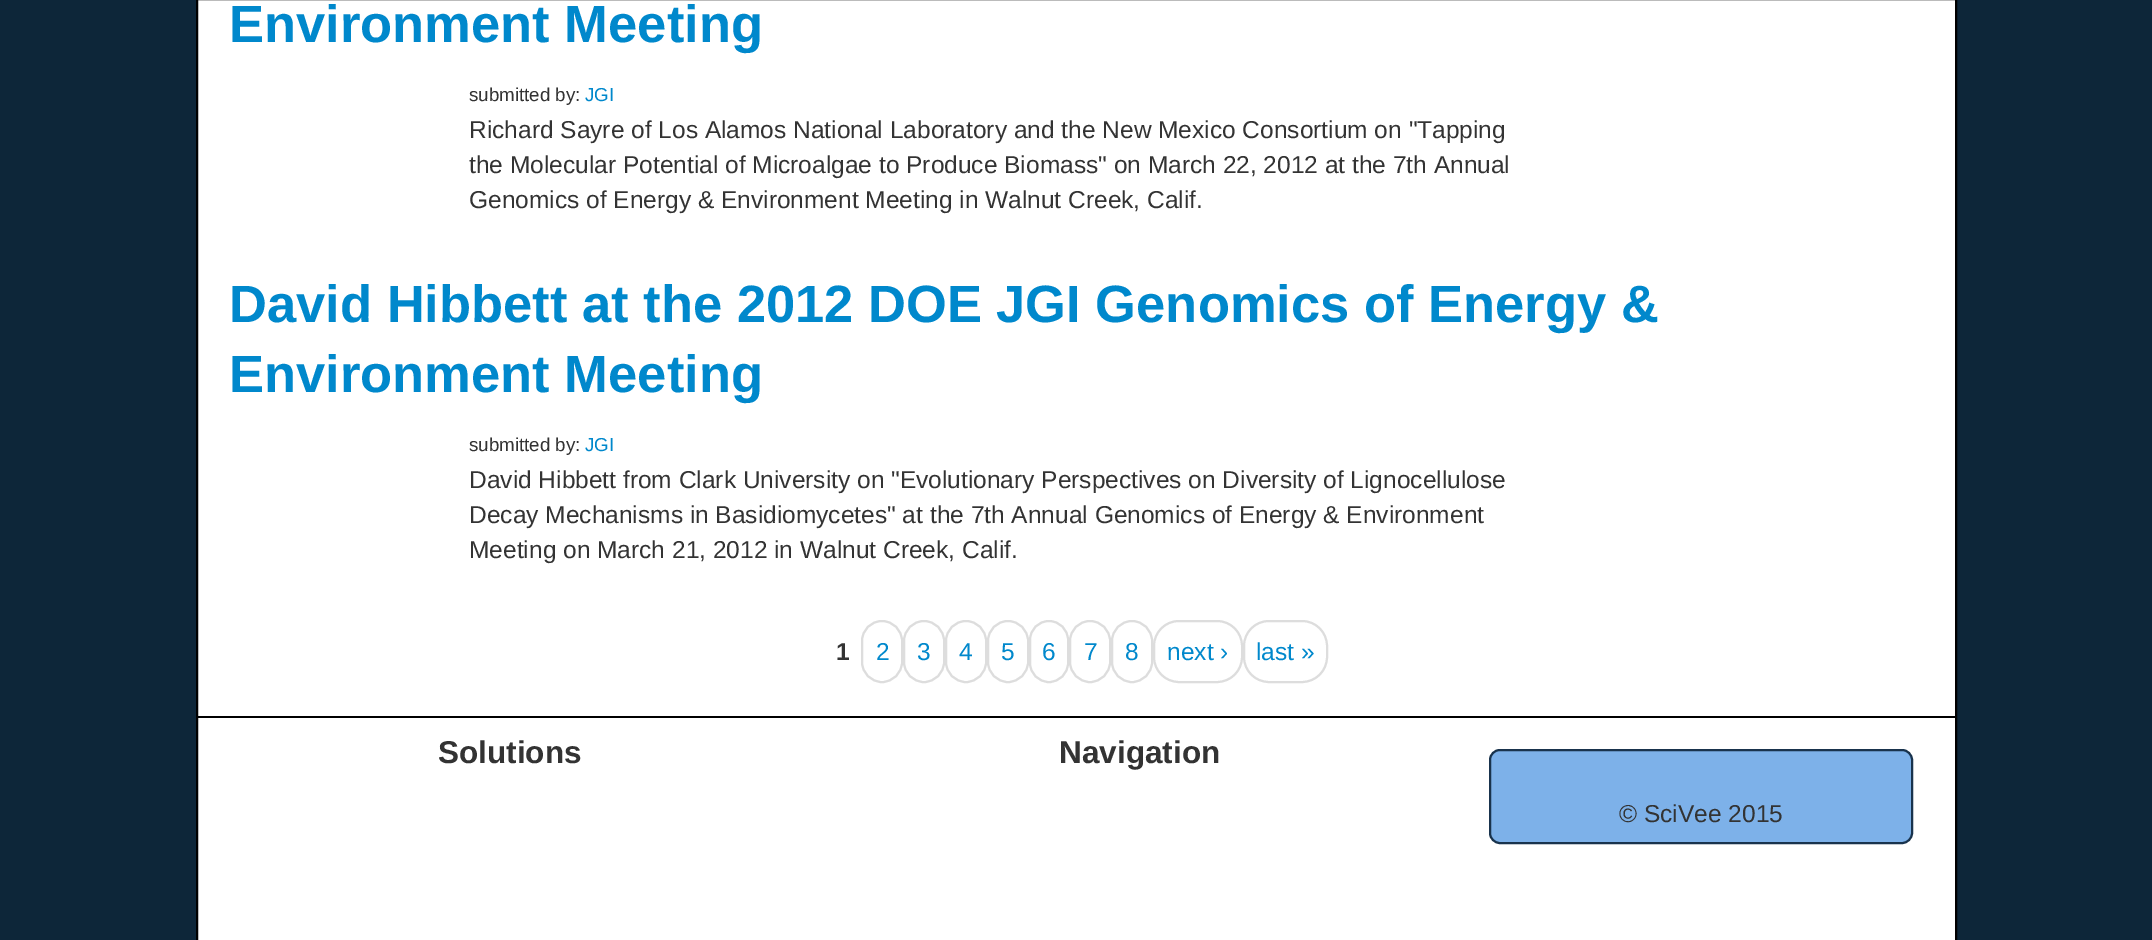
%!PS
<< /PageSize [2152 940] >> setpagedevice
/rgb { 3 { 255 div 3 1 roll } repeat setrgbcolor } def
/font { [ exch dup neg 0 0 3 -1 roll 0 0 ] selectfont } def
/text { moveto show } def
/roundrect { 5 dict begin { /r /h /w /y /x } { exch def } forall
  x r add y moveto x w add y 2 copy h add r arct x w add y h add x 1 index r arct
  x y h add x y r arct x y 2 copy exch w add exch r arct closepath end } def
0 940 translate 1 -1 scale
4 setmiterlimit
13 38 57 rgb
0 0 2152 940 rectfill
255 255 255 rgb
197 -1 moveto 1759 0 rlineto 0 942 rlineto -1759 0 rlineto closepath gsave fill grestore
0 0 0 rgb
2 setlinewidth
stroke
221 221 221 rgb
862 621 40 61 20 roundrect stroke
904 621 40 61 20 roundrect stroke
946 621 40 61 20 roundrect stroke
988 621 40 61 20 roundrect stroke
1030 621 38 61 19 roundrect stroke
1070 621 40 61 20 roundrect stroke
1112 621 40 61 20 roundrect stroke
1154 621 88 61 25 roundrect stroke
1244 621 83 61 25 roundrect stroke
0 0 0 rgb
196 716 1761 2 rectfill
125 177 233 rgb
1490 750 422 93 10 roundrect gsave fill grestore
25 51 77 rgb
stroke
/LiberationSans-Bold 52.5 font
0 136 204 rgb
(Environment Meeting) 229 42 text
/LiberationSans-Regular 18.75 font
51 51 51 rgb
(submitted by:) 469 101 text
0 136 204 rgb
(JGI) 585 101 text
/LiberationSans-Regular 24.5 font
51 51 51 rgb
(Richard Sayre of Los Alamos National Laboratory and the New Mexico Consortium on "Tapping) 469 138 text
(the Molecular Potential of Microalgae to Produce Biomass" on March 22, 2012 at the 7th Annual) 469 173 text
(Genomics of Energy & Environment Meeting in Walnut Creek, Calif.) 469 208 text
/LiberationSans-Bold 52.5 font
0 136 204 rgb
(David Hibbett at the 2012 DOE JGI Genomics of Energy &) 229 322 text
(Environment Meeting) 229 392 text
/LiberationSans-Regular 18.75 font
51 51 51 rgb
(submitted by:) 469 451 text
0 136 204 rgb
(JGI) 585 451 text
/LiberationSans-Regular 24.5 font
51 51 51 rgb
(David Hibbett from Clark University on "Evolutionary Perspectives on Diversity of Lignocellulose) 469 488 text
(Decay Mechanisms in Basidiomycetes" at the 7th Annual Genomics of Energy & Environment) 469 523 text
(Meeting on March 21, 2012 in Walnut Creek, Calif.) 469 558 text
/LiberationSans-Bold 24.5 font
(1) 836 660 text
/LiberationSans-Regular 24.5 font
0 136 204 rgb
(2) 876 660 text
(3) 917 660 text
(4) 959 660 text
(5) 1001 660 text
(6) 1042 660 text
(7) 1084 660 text
(8) 1125 660 text
(next ›) 1167 660 text
(last ») 1256 660 text
/LiberationSans-Bold 31.5 font
51 51 51 rgb
(Solutions) 438 763 text
(Navigation) 1059 763 text
/LiberationSans-Regular 24.5 font
(© SciVee 2015) 1619 822 text
showpage
